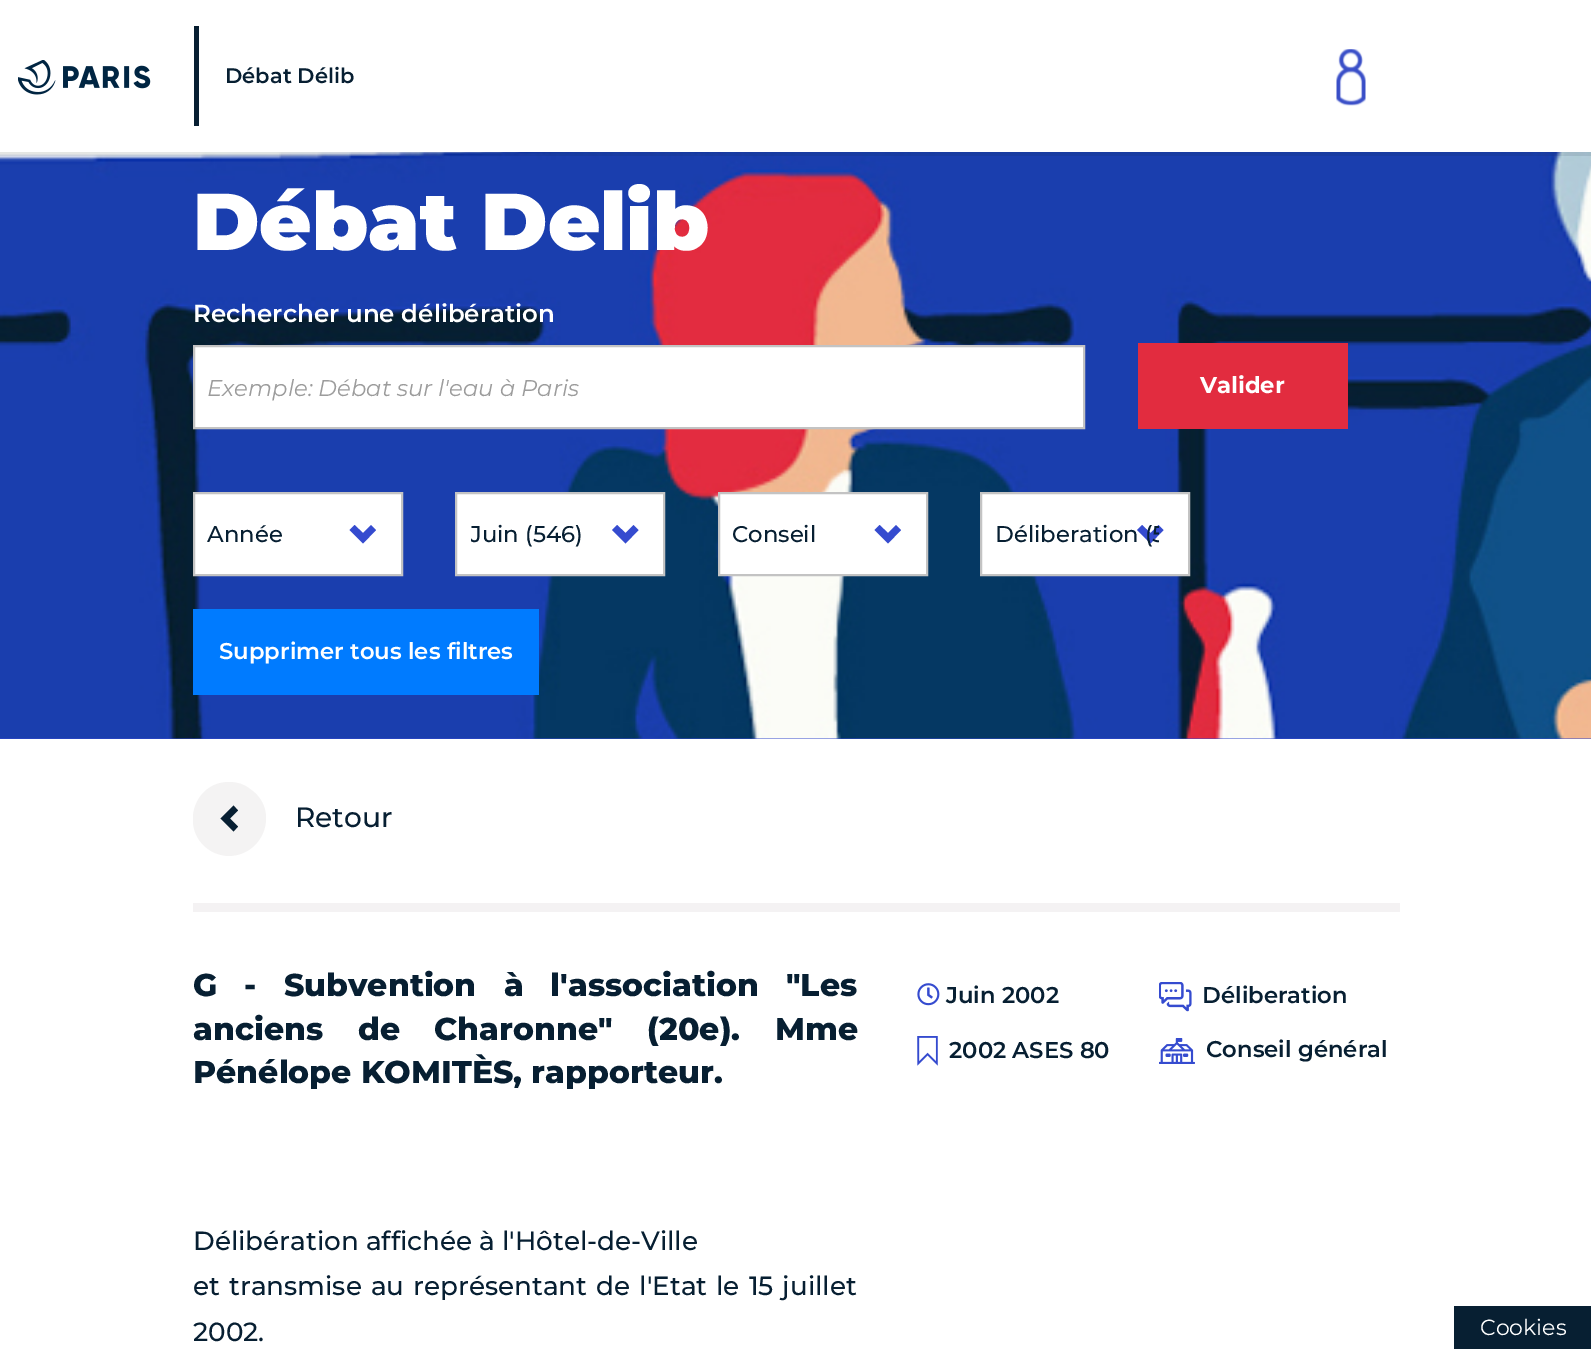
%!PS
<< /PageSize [1591 1349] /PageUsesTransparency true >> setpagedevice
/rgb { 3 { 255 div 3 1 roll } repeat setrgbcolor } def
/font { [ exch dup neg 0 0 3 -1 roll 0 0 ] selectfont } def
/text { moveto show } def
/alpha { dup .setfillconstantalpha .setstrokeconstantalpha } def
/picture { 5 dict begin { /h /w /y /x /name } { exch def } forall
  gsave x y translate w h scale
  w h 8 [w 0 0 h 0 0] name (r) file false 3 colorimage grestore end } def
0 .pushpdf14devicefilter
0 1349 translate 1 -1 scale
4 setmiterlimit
255 255 255 rgb
0 0 1591 1349 rectfill
52 75 207 rgb
0 738 1591 1 rectfill
(img_03.rgb) 0 152 1591 587 picture
0.1 alpha
7 31 50 rgb
0 152 moveto 0 4 rlineto 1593 0 rlineto 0 -152 rlineto -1 0 rlineto 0 148 rlineto closepath fill
1 alpha
(img_01.rgb) 18 60 133 35 picture
194 26 5 100 rectfill
6 28 45 rgb
194 26 5 2 rectfill
(img_02.rgb) 1336 49 30 57 picture
255 255 255 rgb
194 346 moveto 890 0 rlineto 0 82 rlineto -890 0 rlineto closepath gsave fill grestore
195 195 195 rgb
2 setlinewidth
stroke
226 44 63 rgb
1138 343 210 86 rectfill
255 255 255 rgb
195 494 206 80 rectfill
53 75 207 rgb
363 533 moveto 8 -8 rlineto 5 5 rlineto -13 13.5 rlineto -13.5 -13.5 rlineto 5 -5 rlineto closepath fill
195 195 195 rgb
194 493 208 82 rectstroke
255 255 255 rgb
457 494 206 80 rectfill
53 75 207 rgb
625.5 533 moveto 8 -8 rlineto 5 5 rlineto -13 13.5 rlineto -13.5 -13.5 rlineto 5 -5 rlineto closepath fill
195 195 195 rgb
456 493 208 82 rectstroke
255 255 255 rgb
720 494 206 80 rectfill
53 75 207 rgb
888 533 moveto 8 -8 rlineto 5 5 rlineto -13 13.5 rlineto -13.5 -13.5 rlineto 5 -5 rlineto closepath fill
195 195 195 rgb
719 493 208 82 rectstroke
255 255 255 rgb
982 494 206 80 rectfill
53 75 207 rgb
1150.5 533 moveto 8 -8 rlineto 5 5 rlineto -13 13.5 rlineto -13.5 -13.5 rlineto 5 -5 rlineto closepath fill
195 195 195 rgb
981 493 208 82 rectstroke
0 123 255 rgb
193 609 346 86 rectfill
gsave
193 782 73 74 rectclip
244 243 243 rgb
229 782 moveto 8 0 15 2 21 7 rcurveto 30 20 15 66 -21 67 rcurveto -6 0 -13 -2 -18 -5 rcurveto -32 -19 -19 -69 18 -69 rcurveto closepath fill
grestore
7 31 50 rgb
230 818.5 moveto 8 -8 rlineto -4.5 -5 rlineto -13 13 rlineto 13 13 rlineto 4.5 -5 rlineto closepath fill
244 242 243 rgb
193 903 1207 9 rectfill
(img_04.rgb) 917 983 23 23 picture
(img_05.rgb) 1159 982 33 30 picture
(img_06.rgb) 917 1036 21 30 picture
(img_07.rgb) 1159 1038 36 26 picture
7 31 50 rgb
1454 1306 137 43 rectfill
/Montserrat-SemiBold 21 font
(Débat Délib) 225 83 text
/Montserrat-Black 80.5 font
255 255 255 rgb
(Débat Delib) 193 250 text
/Montserrat-SemiBold 24.5 font
(Rechercher une délibération) 193 322 text
/Montserrat-Italic 22.75 font
156 156 156 rgb
(Exemple: Débat sur l'eau à Paris) 207 396 text
/Montserrat-Bold 22.75 font
255 255 255 rgb
(Valider) 1200 393 text
/Montserrat-Medium 22.75 font
7 31 50 rgb
(Année) 207 542 text
gsave
471 513 163 44 rectclip
(Juin \(546\)) 470 542 text
grestore
(Conseil) 732 542 text
gsave
996 513 163 44 rectclip
(Déliberation \(5) 995 542 text
grestore
/Montserrat-SemiBold 22.75 font
255 255 255 rgb
(Supprimer tous les filtres) 219 659 text
/Montserrat-Medium 28 font
7 31 50 rgb
(Retour) 295 827 text
/Montserrat-ExtraBold 31.5 font
193 996 moveto 18 0 32 (G - Subvention à l'association "Les) widthshow
193 1040 moveto 25.5 0 32 (anciens de Charonne" \(20e\). Mme) widthshow
(Pénélope KOMITÈS, rapporteur.) 193 1083 text
/Montserrat-Medium 26.25 font
(Délibération affichée à l'Hôtel-de-Ville) 193 1250 text
193 1295 moveto 2 0 32 (et transmise au représentant de l'Etat le 15 juillet) widthshow
(2002.) 193 1341 text
/Montserrat-SemiBold 22.75 font
(Juin 2002) 946 1003 text
(Déliberation) 1202 1003 text
(2002 ASES 80) 949 1058 text
(Conseil général) 1206 1057 text
/Montserrat-Regular 22 font
255 255 255 rgb
(Cookies) 1480 1335 text
.poppdf14devicefilter showpage
